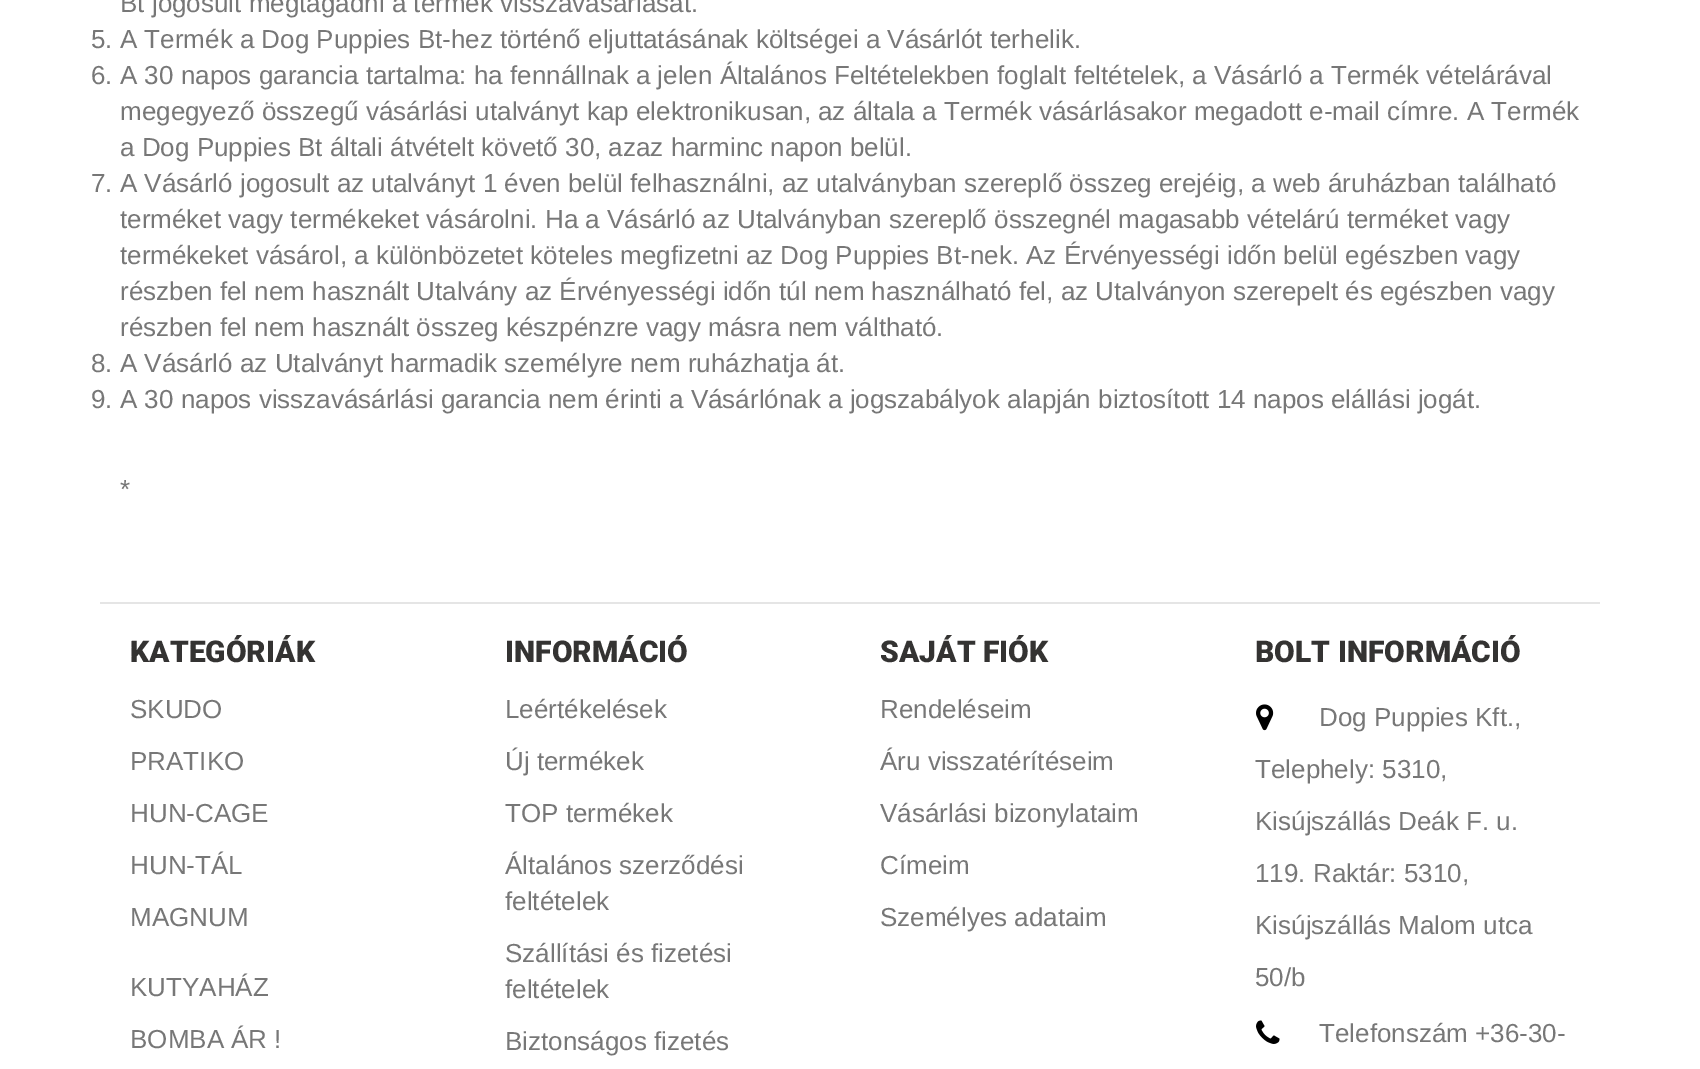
%!PS
<< /PageSize [1700 1069] >> setpagedevice
/rgb { 3 { 255 div 3 1 roll } repeat setrgbcolor } def
/font { [ exch dup neg 0 0 3 -1 roll 0 0 ] selectfont } def
/text { moveto show } def
/picture { 5 dict begin { /h /w /y /x /name } { exch def } forall
  gsave x y translate w h scale
  w h 8 [w 0 0 h 0 0] name (r) file false 3 colorimage grestore end } def
0 1069 translate 1 -1 scale
4 setmiterlimit
255 255 255 rgb
0 0 1700 1069 rectfill
229 229 229 rgb
100 602 1500 2 rectfill
(img_01.rgb) 1256 704 18 27 picture
(img_02.rgb) 1256 1020 24 24 picture
/LiberationSans-Regular 26 font
119 119 119 rgb
(Bt jogosult megtagadni a termék visszavásárlását.) 120 12 text
(5. A Termék a Dog Puppies Bt-hez történő eljuttatásának költségei a Vásárlót terhelik.) 91 48 text
(6. A 30 napos garancia tartalma: ha fennállnak a jelen Általános Feltételekben foglalt feltételek, a Vásárló a Termék vételárával) 91 84 text
(megegyező összegű vásárlási utalványt kap elektronikusan, az általa a Termék vásárlásakor megadott e-mail címre. A Termék) 120 120 text
(a Dog Puppies Bt általi átvételt követő 30, azaz harminc napon belül.) 120 156 text
(7. A Vásárló jogosult az utalványt 1 éven belül felhasználni, az utalványban szereplő összeg erejéig, a web áruházban található) 91 192 text
(terméket vagy termékeket vásárolni. Ha a Vásárló az Utalványban szereplő összegnél magasabb vételárú terméket vagy) 120 228 text
(termékeket vásárol, a különbözetet köteles megfizetni az Dog Puppies Bt-nek. Az Érvényességi időn belül egészben vagy) 120 264 text
(részben fel nem használt Utalvány az Érvényességi időn túl nem használható fel, az Utalványon szerepelt és egészben vagy) 120 300 text
(részben fel nem használt összeg készpénzre vagy másra nem váltható.) 120 336 text
(8. A Vásárló az Utalványt harmadik személyre nem ruházhatja át.) 91 372 text
(9. A 30 napos visszavásárlási garancia nem érinti a Vásárlónak a jogszabályok alapján biztosított 14 napos elállási jogát.) 91 408 text
(*) 120 498 text
/Roboto-Black 30 font
52 51 50 rgb
(KATEGÓRIÁK) 130 662 text
/LiberationSans-Regular 26 font
119 119 119 rgb
(SKUDO) 130 718 text
(PRATIKO) 130 770 text
(HUN-CAGE) 130 822 text
(HUN-TÁL) 130 874 text
(MAGNUM) 130 926 text
(KUTYAHÁZ) 130 996 text
(BOMBA ÁR !) 130 1048 text
/Roboto-Black 30 font
52 51 50 rgb
(INFORMÁCIÓ) 505 662 text
/LiberationSans-Regular 26 font
119 119 119 rgb
(Leértékelések) 505 718 text
(Új termékek) 505 770 text
(TOP termékek) 505 822 text
(Általános szerződési) 505 874 text
(feltételek) 505 910 text
(Szállítási és fizetési) 505 962 text
(feltételek) 505 998 text
(Biztonságos fizetés) 505 1050 text
/Roboto-Black 30 font
52 51 50 rgb
(SAJÁT FIÓK) 880 662 text
/LiberationSans-Regular 26 font
119 119 119 rgb
(Rendeléseim) 880 718 text
(Áru visszatérítéseim) 880 770 text
(Vásárlási bizonylataim) 880 822 text
(Címeim) 880 874 text
(Személyes adataim) 880 926 text
/Roboto-Black 30 font
52 51 50 rgb
(BOLT INFORMÁCIÓ) 1255 662 text
/LiberationSans-Regular 26 font
119 119 119 rgb
(Dog Puppies Kft.,) 1319 726 text
(Telephely: 5310,) 1255 778 text
(Kisújszállás Deák F. u.) 1255 830 text
(119. Raktár: 5310,) 1255 882 text
(Kisújszállás Malom utca) 1255 934 text
(50/b) 1255 986 text
(Telefonszám +36-30-) 1319 1042 text
showpage
